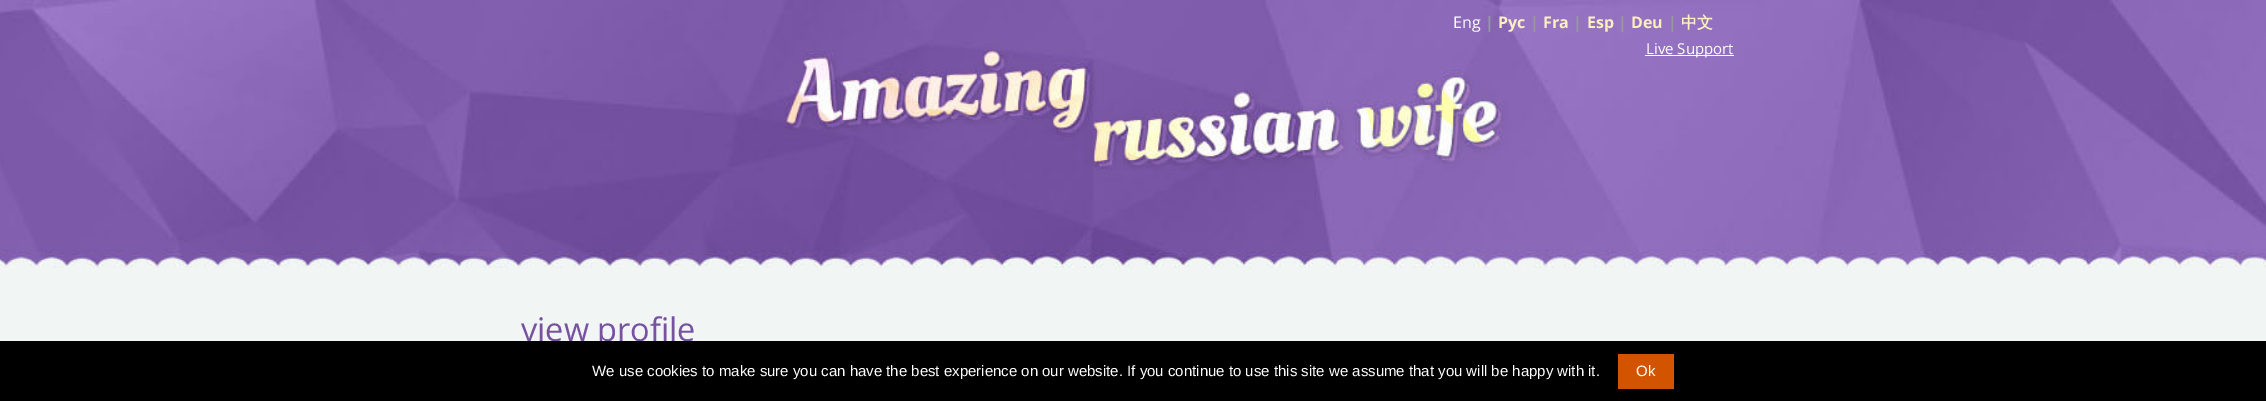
%!PS
<< /PageSize [2266 401] >> setpagedevice
/rgb { 3 { 255 div 3 1 roll } repeat setrgbcolor } def
/font { [ exch dup neg 0 0 3 -1 roll 0 0 ] selectfont } def
/text { moveto show } def
/picture { 5 dict begin { /h /w /y /x /name } { exch def } forall
  gsave x y translate w h scale
  w h 8 [w 0 0 h 0 0] name (r) file false 3 colorimage grestore end } def
0 401 translate 1 -1 scale
4 setmiterlimit
241 245 244 rgb
0 0 2266 401 rectfill
(img_01.rgb) 0 0 2266 268 picture
255 255 255 rgb
1645 55 89 1 rectfill
/OpenSans-Regular 16 font
(Eng) 1453 28 text
/OpenSans-Bold 16 font
153 153 153 rgb
(|) 1485 28 text
255 238 191 rgb
(Рус) 1498 28 text
153 153 153 rgb
(|) 1530 28 text
255 238 191 rgb
(Fra) 1543 28 text
153 153 153 rgb
(|) 1573 28 text
255 238 191 rgb
(Esp) 1587 28 text
153 153 153 rgb
(|) 1618 28 text
255 238 191 rgb
(Deu) 1631 28 text
153 153 153 rgb
(|) 1668 28 text
/WenQuanYiZenHei-Bold 16 font
255 238 191 rgb
(中文) 1681 28 text
/OpenSans-Regular 15 font
255 255 255 rgb
(Live Support) 1646 54 text
/OpenSans-Regular 32.5 font
118 82 161 rgb
(view profile) 521 341 text
0 0 0 rgb
0 341 2266 60 rectfill
/LiberationSans-Regular 15 font
255 255 255 rgb
(We use cookies to make sure you can have the best experience on our website. If you continue to use this site we assume that you will be happy with it.) 592 376 text
211 84 0 rgb
1618 354 56 35 rectfill
255 255 255 rgb
(Ok) 1636 376 text
showpage
